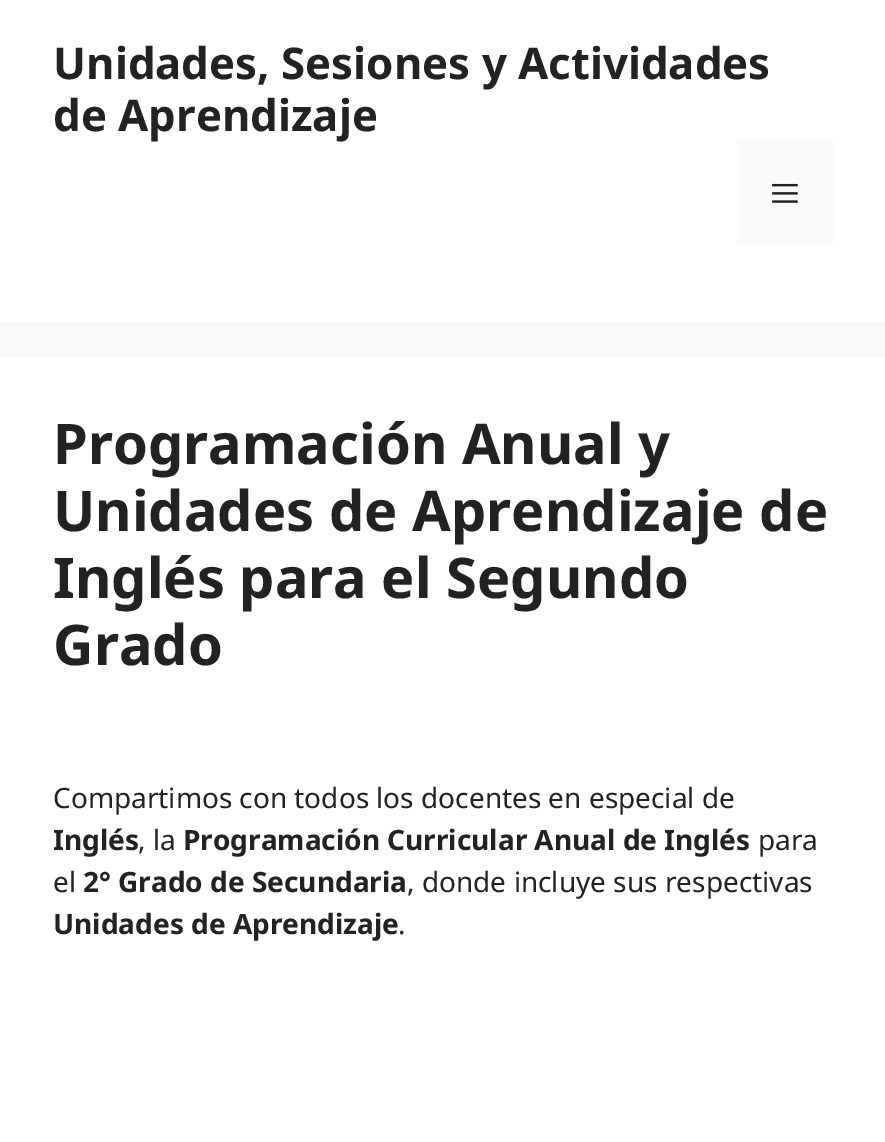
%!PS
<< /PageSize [885 1142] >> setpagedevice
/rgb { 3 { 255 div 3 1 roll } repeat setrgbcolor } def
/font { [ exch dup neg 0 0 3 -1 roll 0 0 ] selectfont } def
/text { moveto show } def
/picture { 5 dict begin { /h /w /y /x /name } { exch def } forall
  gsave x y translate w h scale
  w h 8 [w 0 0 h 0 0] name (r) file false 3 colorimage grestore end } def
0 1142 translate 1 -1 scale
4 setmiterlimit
247 248 249 rgb
0 0 885 1142 rectfill
255 255 255 rgb
0 0 885 322 rectfill
250 250 250 rgb
737 140 96 105 rectfill
(img_01.rgb) 772 183 26 20 picture
255 255 255 rgb
0 357 885 785 rectfill
/NotoSans-Bold 43.75 font
34 34 34 rgb
(Unidades, Sesiones y Actividades) 53 79 text
(de Aprendizaje) 53 131 text
/NotoSans-Bold 56 font
(Programación Anual y) 53 464 text
(Unidades de Aprendizaje de) 53 531 text
(Inglés para el Segundo) 53 598 text
(Grado) 53 665 text
/NotoSans-Regular 28 font
(Compartimos con todos los docentes en especial de) 53 808 text
/NotoSans-Bold 28 font
(Inglés) 53 850 text
/NotoSans-Regular 28 font
(, la) 138 850 text
/NotoSans-Bold 28 font
(Programación Curricular Anual de Inglés) 183 850 text
/NotoSans-Regular 28 font
(para) 758 850 text
(el) 53 892 text
/NotoSans-Bold 28 font
(2° Grado de Secundaria) 83 892 text
/NotoSans-Regular 28 font
(, donde incluye sus respectivas) 407 892 text
/NotoSans-Bold 28 font
(Unidades de Aprendizaje) 53 934 text
/NotoSans-Regular 28 font
(.) 398 934 text
showpage
